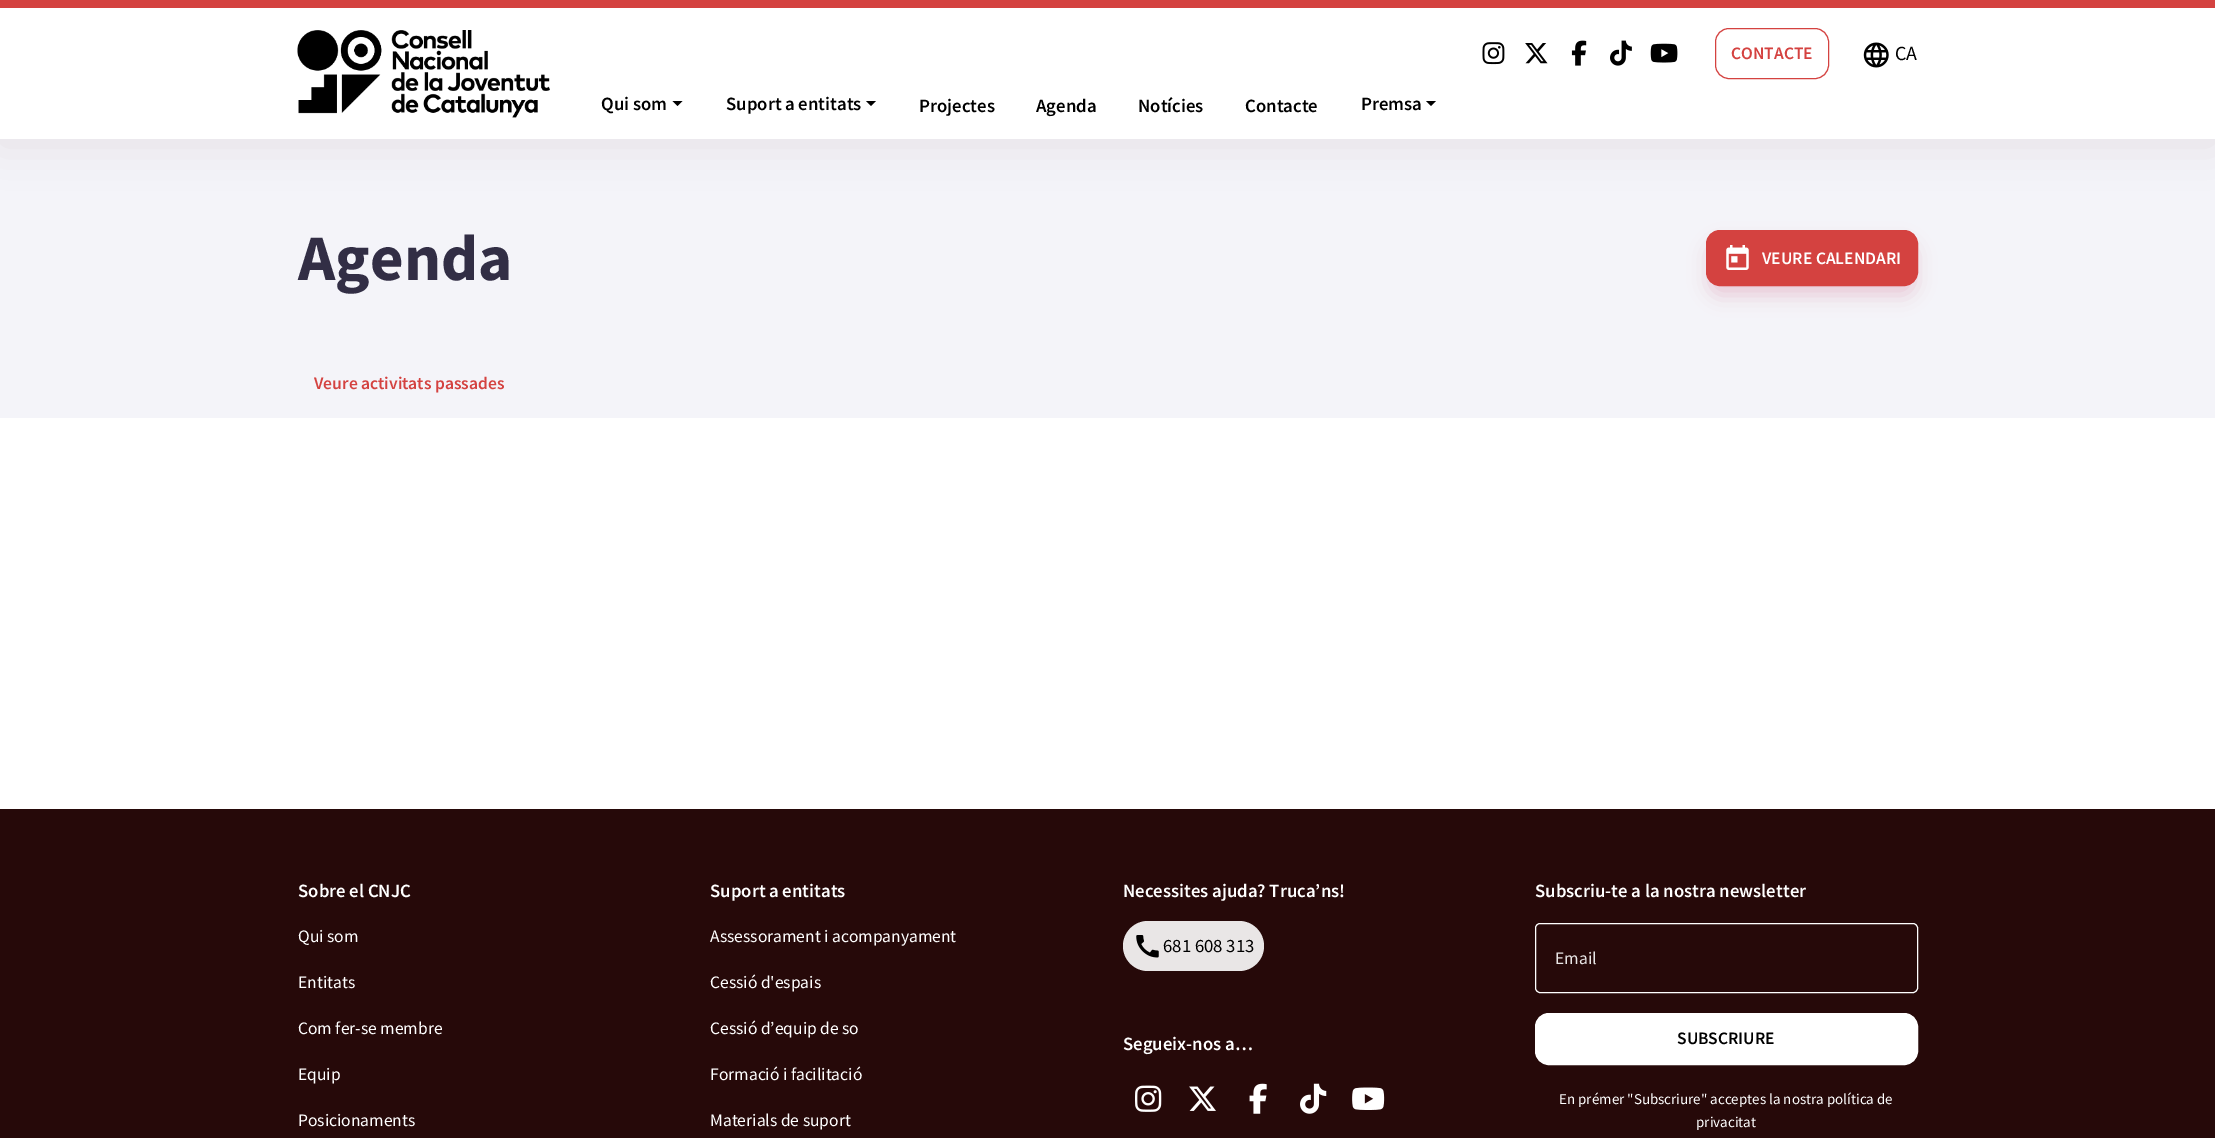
%!PS
<< /PageSize [2215 1138] /PageUsesTransparency true >> setpagedevice
/rgb { 3 { 255 div 3 1 roll } repeat setrgbcolor } def
/font { [ exch dup neg 0 0 3 -1 roll 0 0 ] selectfont } def
/text { moveto show } def
/alpha { dup .setfillconstantalpha .setstrokeconstantalpha } def
/roundrect { 5 dict begin { /r /h /w /y /x } { exch def } forall
  x r add y moveto x w add y 2 copy h add r arct x w add y h add x 1 index r arct
  x y h add x y r arct x y 2 copy exch w add exch r arct closepath end } def
/shadow { 12 dict begin { /a /b /q /h /w /y /x } { exch def } forall gsave /was 0 def
  9 -2 -9 { dup b mul 4 div /e exch def 1 sub .425 mul 2.718 exch exp 1 add a .99 .min exch div /now exch def
    1 1 now sub 1 was sub div sub alpha /was now def
    w h .min e 2 mul add 0 gt { x e sub y e sub w e 2 mul add h e 2 mul add
      q e add b .6 mul add w h .min 2 div e add .min 0 .max roundrect fill } if } for grestore end } def
/picture { 5 dict begin { /h /w /y /x /name } { exch def } forall
  gsave x y translate w h scale
  w h 8 [w 0 0 h 0 0] name (r) file false 3 colorimage grestore end } def
0 .pushpdf14devicefilter
0 1138 translate 1 -1 scale
4 setmiterlimit
255 255 255 rgb
0 0 2215 1138 rectfill
244 244 249 rgb
0 139 2215 279 rectfill
210 203 206 rgb
0 5 2215 139 0 21 0.5 shadow
255 255 255 rgb
0 8 2215 131 rectfill
212 66 64 rgb
0 0 2215 8 rectfill
(img_01.rgb) 297 30 253 88 picture
(img_02.rgb) 1482 42 23 23 picture
(img_03.rgb) 1525 43 23 21 picture
(img_04.rgb) 1571 40 16 26 picture
(img_05.rgb) 1610 40 22 26 picture
(img_06.rgb) 1650 43 28 20 picture
1715.5 28.5 113 50 13.5 roundrect stroke
(img_07.rgb) 1863 42 26 26 picture
0 0 0 rgb
672.5 101 moveto 10 0 rlineto -5 5 rlineto closepath fill
866 101 moveto 10 0 rlineto -5 5 rlineto closepath fill
1426 101 moveto 10 0 rlineto -5 5 rlineto closepath fill
198 67 107 rgb
1709 244 206 51 11 10 0.25 shadow
212 66 64 rgb
1706.5 230.5 211 55 13.5 roundrect gsave fill grestore
stroke
(img_08.rgb) 1726 245 23 25 picture
38 9 9 rgb
0 809 2215 329 rectfill
233 230 230 rgb
1123 921 141 50 25 roundrect fill
(img_09.rgb) 1136 935 23 23 picture
(img_10.rgb) 1135 1085 27 27 picture
(img_11.rgb) 1189 1086 27 25 picture
(img_12.rgb) 1249 1083 18 31 picture
(img_13.rgb) 1300 1083 27 31 picture
(img_14.rgb) 1352 1087 33 23 picture
255 255 255 rgb
1535.5 923.5 382 69 4.5 roundrect stroke
1535.5 1013.5 382 51 13.5 roundrect gsave fill grestore
stroke
/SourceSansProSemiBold-SemiBold 17.5 font
212 66 64 rgb
(CONTACTE) 1731 59 text
/SourceSansPro-Regular 20 font
0 0 0 rgb
(CA) 1895 60 text
/SourceSansProSemiBold-SemiBold 18.75 font
(Qui som) 601 110 text
(Suport a entitats) 726 110 text
(Projectes) 919 112 text
(Agenda) 1036 112 text
(Notícies) 1138 112 text
(Contacte) 1245 112 text
(Premsa) 1361 110 text
/SourceSansPro-Bold 65 font
50 46 69 rgb
(Agenda) 298 280 text
/SourceSansProSemiBold-SemiBold 17.5 font
255 255 255 rgb
(VEURE CALENDARI) 1762 264 text
212 66 64 rgb
(Veure activitats passades) 314 389 text
/SourceSansProSemiBold-SemiBold 18.75 font
255 255 255 rgb
(Sobre el CNJC) 298 897 text
/SourceSansPro-Regular 17.5 font
(Qui som) 298 942 text
(Entitats) 298 988 text
(Com fer-se membre) 298 1034 text
(Equip) 298 1080 text
(Posicionaments) 298 1126 text
/SourceSansProSemiBold-SemiBold 18.75 font
(Suport a entitats) 710 897 text
/SourceSansPro-Regular 17.5 font
(Assessorament i acompanyament) 710 942 text
(Cessió d'espais) 710 988 text
(Cessió d’equip de so) 710 1034 text
(Formació i facilitació) 710 1080 text
(Materials de suport) 710 1126 text
/SourceSansProSemiBold-SemiBold 18.75 font
(Necessites ajuda? Truca’ns!) 1123 897 text
/SourceSansPro-Regular 18.75 font
0 0 0 rgb
(681 608 313) 1163 952 text
/SourceSansProSemiBold-SemiBold 18.75 font
255 255 255 rgb
(Segueix-nos a…) 1123 1050 text
(Subscriu-te a la nostra newsletter) 1535 897 text
/SourceSansPro-Regular 17.5 font
233 230 230 rgb
(Email) 1555 964 text
/SourceSansProSemiBold-SemiBold 17.5 font
0 0 0 rgb
(SUBSCRIURE) 1677 1044 text
/SourceSansPro-Regular 15 font
255 255 255 rgb
(En prémer "Subscriure" acceptes la nostra política de) 1559 1104 text
(privacitat) 1696 1127 text
.poppdf14devicefilter showpage
